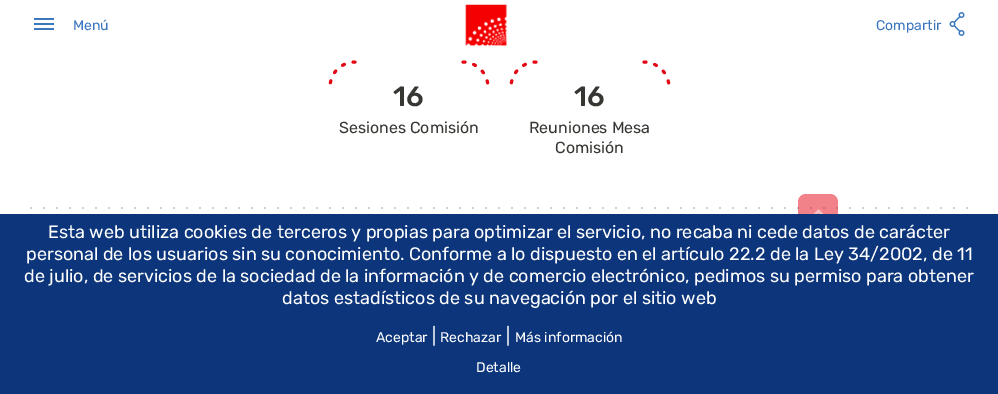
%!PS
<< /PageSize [998 394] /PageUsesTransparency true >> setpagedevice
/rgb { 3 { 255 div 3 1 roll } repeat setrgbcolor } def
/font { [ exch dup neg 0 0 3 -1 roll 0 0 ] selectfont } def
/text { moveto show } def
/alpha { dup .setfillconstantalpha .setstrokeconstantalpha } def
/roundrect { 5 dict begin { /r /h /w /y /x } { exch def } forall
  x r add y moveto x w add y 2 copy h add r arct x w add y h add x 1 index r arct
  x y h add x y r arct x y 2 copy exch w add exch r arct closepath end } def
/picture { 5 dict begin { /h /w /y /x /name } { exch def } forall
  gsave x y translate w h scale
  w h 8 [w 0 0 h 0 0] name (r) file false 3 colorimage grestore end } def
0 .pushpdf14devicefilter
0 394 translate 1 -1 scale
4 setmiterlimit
255 255 255 rgb
0 0 998 394 rectfill
59 118 191 rgb
34 18 20 2 rectfill
34 23 20 2 rectfill
34 28 20 2 rectfill
(img_01.rgb) 465 4 43 43 picture
(img_02.rgb) 949 12 16 24 picture
227 6 19 rgb
3 setlinewidth
1 setlinecap
1 setlinejoin
[2 9] 0 setdash
355 62 moveto -14 0 -25 11 -25 25 rcurveto 0 3 rlineto stroke
463 62 moveto 14 0 25 11.5 25 25 rcurveto stroke
536 62 moveto -14 0 -25 11 -25 25 rcurveto 0 3 rlineto stroke
644 62 moveto 14 0 25 11.5 25 25 rcurveto stroke
(img_03.rgb) 30 207 938 2 picture
0.5 alpha
798 194 40 40 8 roundrect fill
1 alpha
(img_04.rgb) 813 209 11 5 picture
13 53 123 rgb
0 214 998 180 rectfill
/Rubik-Regular 14 font
59 118 191 rgb
(Menú) 73 30 text
(Compartir) 876 30 text
/Rubik-Medium 28 font
54 55 50 rgb
(16) 393 106 text
/Rubik-Regular 16 font
(Sesiones Comisión) 339 133 text
/Rubik-Medium 28 font
(16) 574 106 text
/Rubik-Regular 16 font
(Reuniones Mesa) 529 133 text
(Comisión) 555 153 text
/Rubik-Regular 18 font
255 255 255 rgb
(Esta web utiliza cookies de terceros y propias para optimizar el servicio, no recaba ni cede datos de carácter) 48 238 text
(personal de los usuarios sin su conocimiento. Conforme a lo dispuesto en el artículo 22.2 de la Ley 34/2002, de 11) 26 260 text
(de julio, de servicios de la sociedad de la información y de comercio electrónico, pedimos su permiso para obtener) 24 282 text
(datos estadísticos de su navegación por el sitio web) 282 304 text
/Rubik-Regular 14 font
(Aceptar) 376 342 text
/Rubik-Regular 18 font
(|) 432 342 text
/Rubik-Regular 14 font
(Rechazar) 440 342 text
/Rubik-Regular 18 font
(|) 506 342 text
/Rubik-Regular 14 font
(Más información) 515 342 text
(Detalle) 476 372 text
.poppdf14devicefilter showpage
